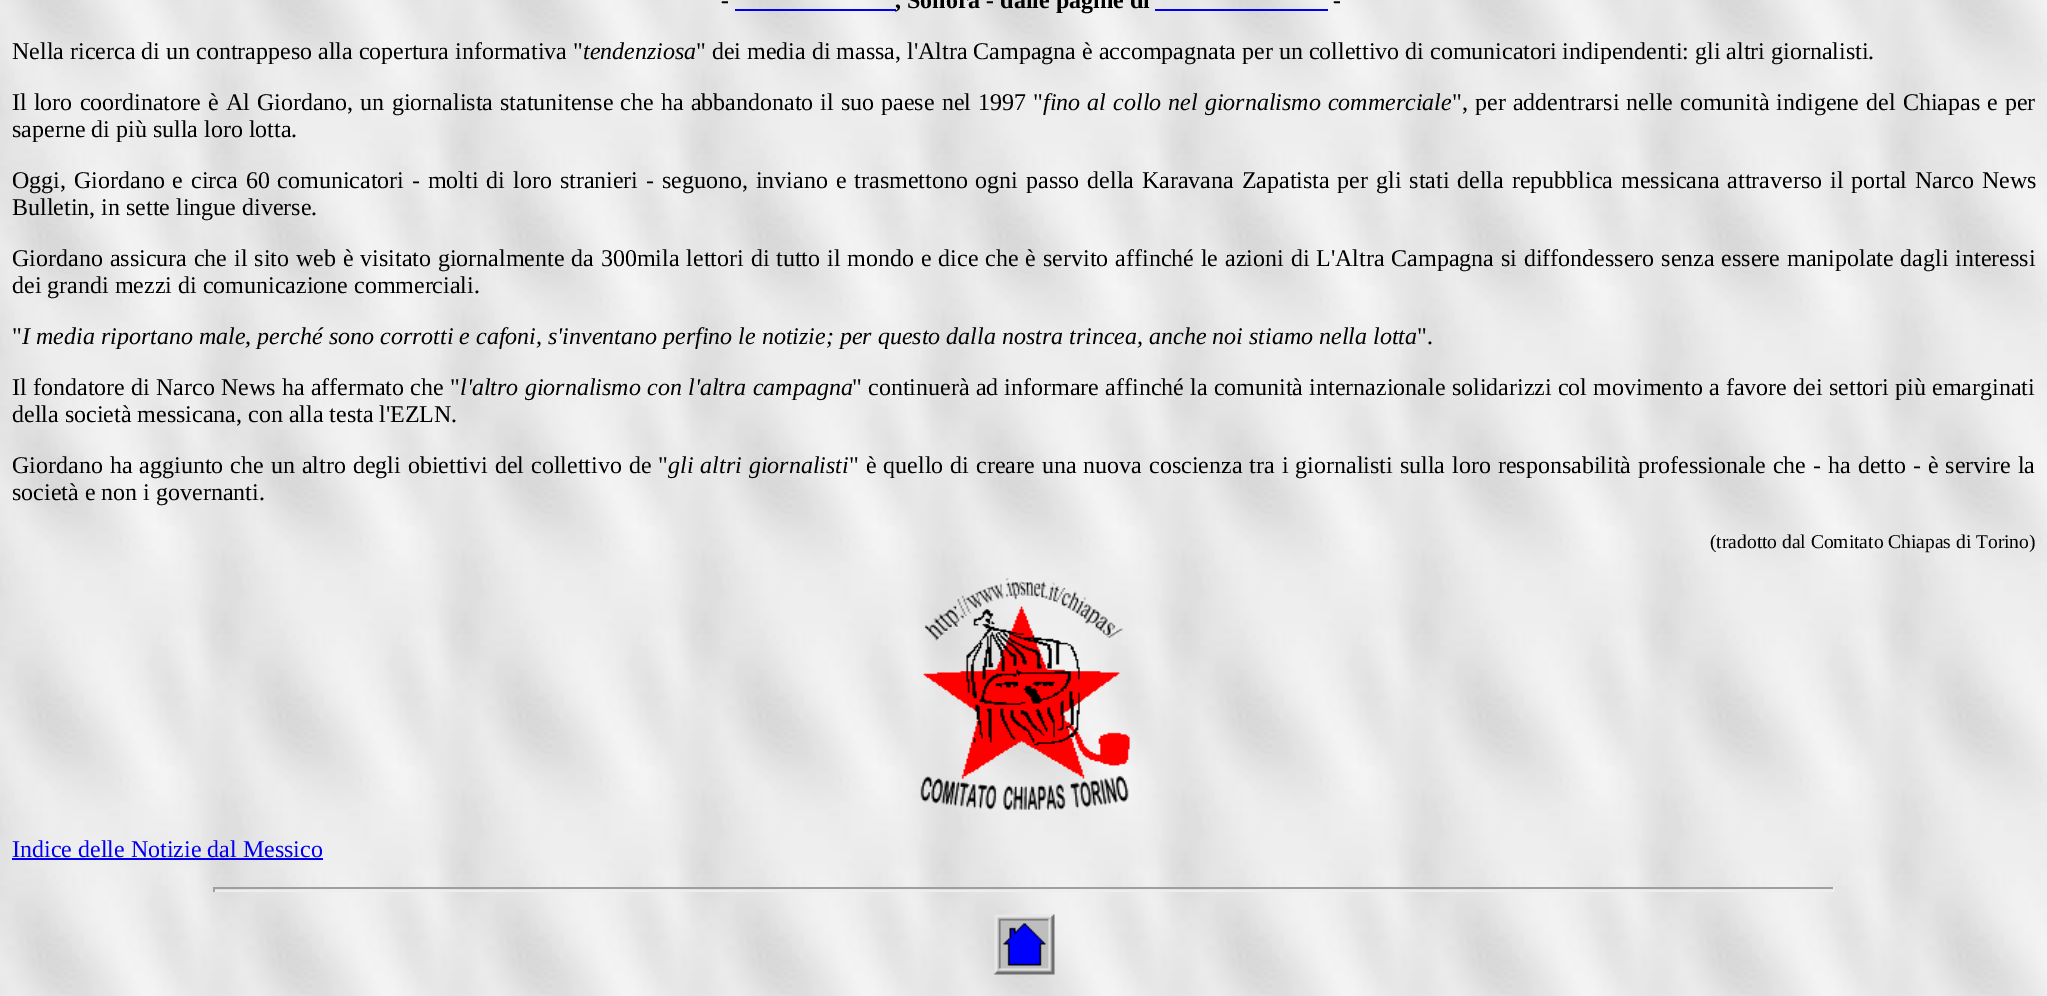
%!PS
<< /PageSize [2047 996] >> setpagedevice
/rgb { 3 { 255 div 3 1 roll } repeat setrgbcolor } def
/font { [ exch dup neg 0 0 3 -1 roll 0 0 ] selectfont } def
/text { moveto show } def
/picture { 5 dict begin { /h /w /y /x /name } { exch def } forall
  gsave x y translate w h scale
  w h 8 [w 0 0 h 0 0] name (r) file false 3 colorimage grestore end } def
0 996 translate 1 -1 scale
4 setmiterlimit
255 255 255 rgb
0 0 2047 996 rectfill
(img_01.rgb) 0 0 2047 996 picture
0 0 238 rgb
735 9 161 2 rectfill
1155 9 173 2 rectfill
(img_02.rgb) 920 578 210 232 picture
12 858 311 2 rectfill
159 159 159 rgb
213 887 1622 2 rectfill
238 238 238 rgb
1833 887 2 5 rectfill
213 890 1622 2 rectfill
159 159 159 rgb
213 887 2 5 rectfill
(img_03.rgb) 994 914 61 61 picture
/LiberationSerif-Bold 24 font
0 0 0 rgb
(-) 721 8 text
(, Sonora - dalle pagine di) 895 8 text
(-) 1333 8 text
/LiberationSerif-Regular 24 font
(Nella ricerca di un contrappeso alla copertura informativa ") 12 59 text
/LiberationSerif-Italic 24 font
(tendenziosa) 583 59 text
/LiberationSerif-Regular 24 font
(" dei media di massa, l'Altra Campagna è accompagnata per un collettivo di comunicatori indipendenti: gli altri giornalisti.) 696 59 text
12 110 moveto 1.1 0 32 (Il loro coordinatore è Al Giordano, un giornalista statunitense che ha abbandonato il suo paese nel 1997 ") widthshow
/LiberationSerif-Italic 24 font
1043 110 moveto 1.1 0 32 (fino al collo nel giornalismo commerciale) widthshow
/LiberationSerif-Regular 24 font
1452 110 moveto 1.1 0 32 (", per addentrarsi nelle comunità indigene del Chiapas e per) widthshow
(saperne di più sulla loro lotta.) 12 137 text
12 188 moveto 1.9 0 32 (Oggi, Giordano e circa 60 comunicatori - molti di loro stranieri - seguono, inviano e trasmettono ogni passo della Karavana Zapatista per gli stati della repubblica messicana attraverso il portal Narco News) widthshow
(Bulletin, in sette lingue diverse.) 12 215 text
12 266 moveto 0.9 0 32 (Giordano assicura che il sito web è visitato giornalmente da 300mila lettori di tutto il mondo e dice che è servito affinché le azioni di L'Altra Campagna si diffondessero senza essere manipolate dagli interessi) widthshow
(dei grandi mezzi di comunicazione commerciali.) 12 293 text
(") 12 344 text
/LiberationSerif-Italic 24 font
(I media riportano male, perché sono corrotti e cafoni, s'inventano perfino le notizie; per questo dalla nostra trincea, anche noi stiamo nella lotta) 22 344 text
/LiberationSerif-Regular 24 font
(".) 1417 344 text
12 395 moveto 0.25 0 32 (Il fondatore di Narco News ha affermato che ") widthshow
/LiberationSerif-Italic 24 font
460 395 moveto 0.25 0 32 (l'altro giornalismo con l'altra campagna) widthshow
/LiberationSerif-Regular 24 font
852 395 moveto 0.25 0 32 (" continuerà ad informare affinché la comunità internazionale solidarizzi col movimento a favore dei settori più emarginati) widthshow
(della società messicana, con alla testa l'EZLN.) 12 422 text
12 473 moveto 1 0 32 (Giordano ha aggiunto che un altro degli obiettivi del collettivo de ") widthshow
/LiberationSerif-Italic 24 font
668 473 moveto 1 0 32 (gli altri giornalisti) widthshow
/LiberationSerif-Regular 24 font
849 473 moveto 1 0 32 (" è quello di creare una nuova coscienza tra i giornalisti sulla loro responsabilità professionale che - ha detto - è servire la) widthshow
(società e non i governanti.) 12 500 text
/LiberationSerif-Regular 19.5 font
(\(tradotto dal Comitato Chiapas di Torino\)) 1710 548 text
/LiberationSerif-Regular 24 font
0 0 238 rgb
(Indice delle Notizie dal Messico) 12 857 text
showpage
